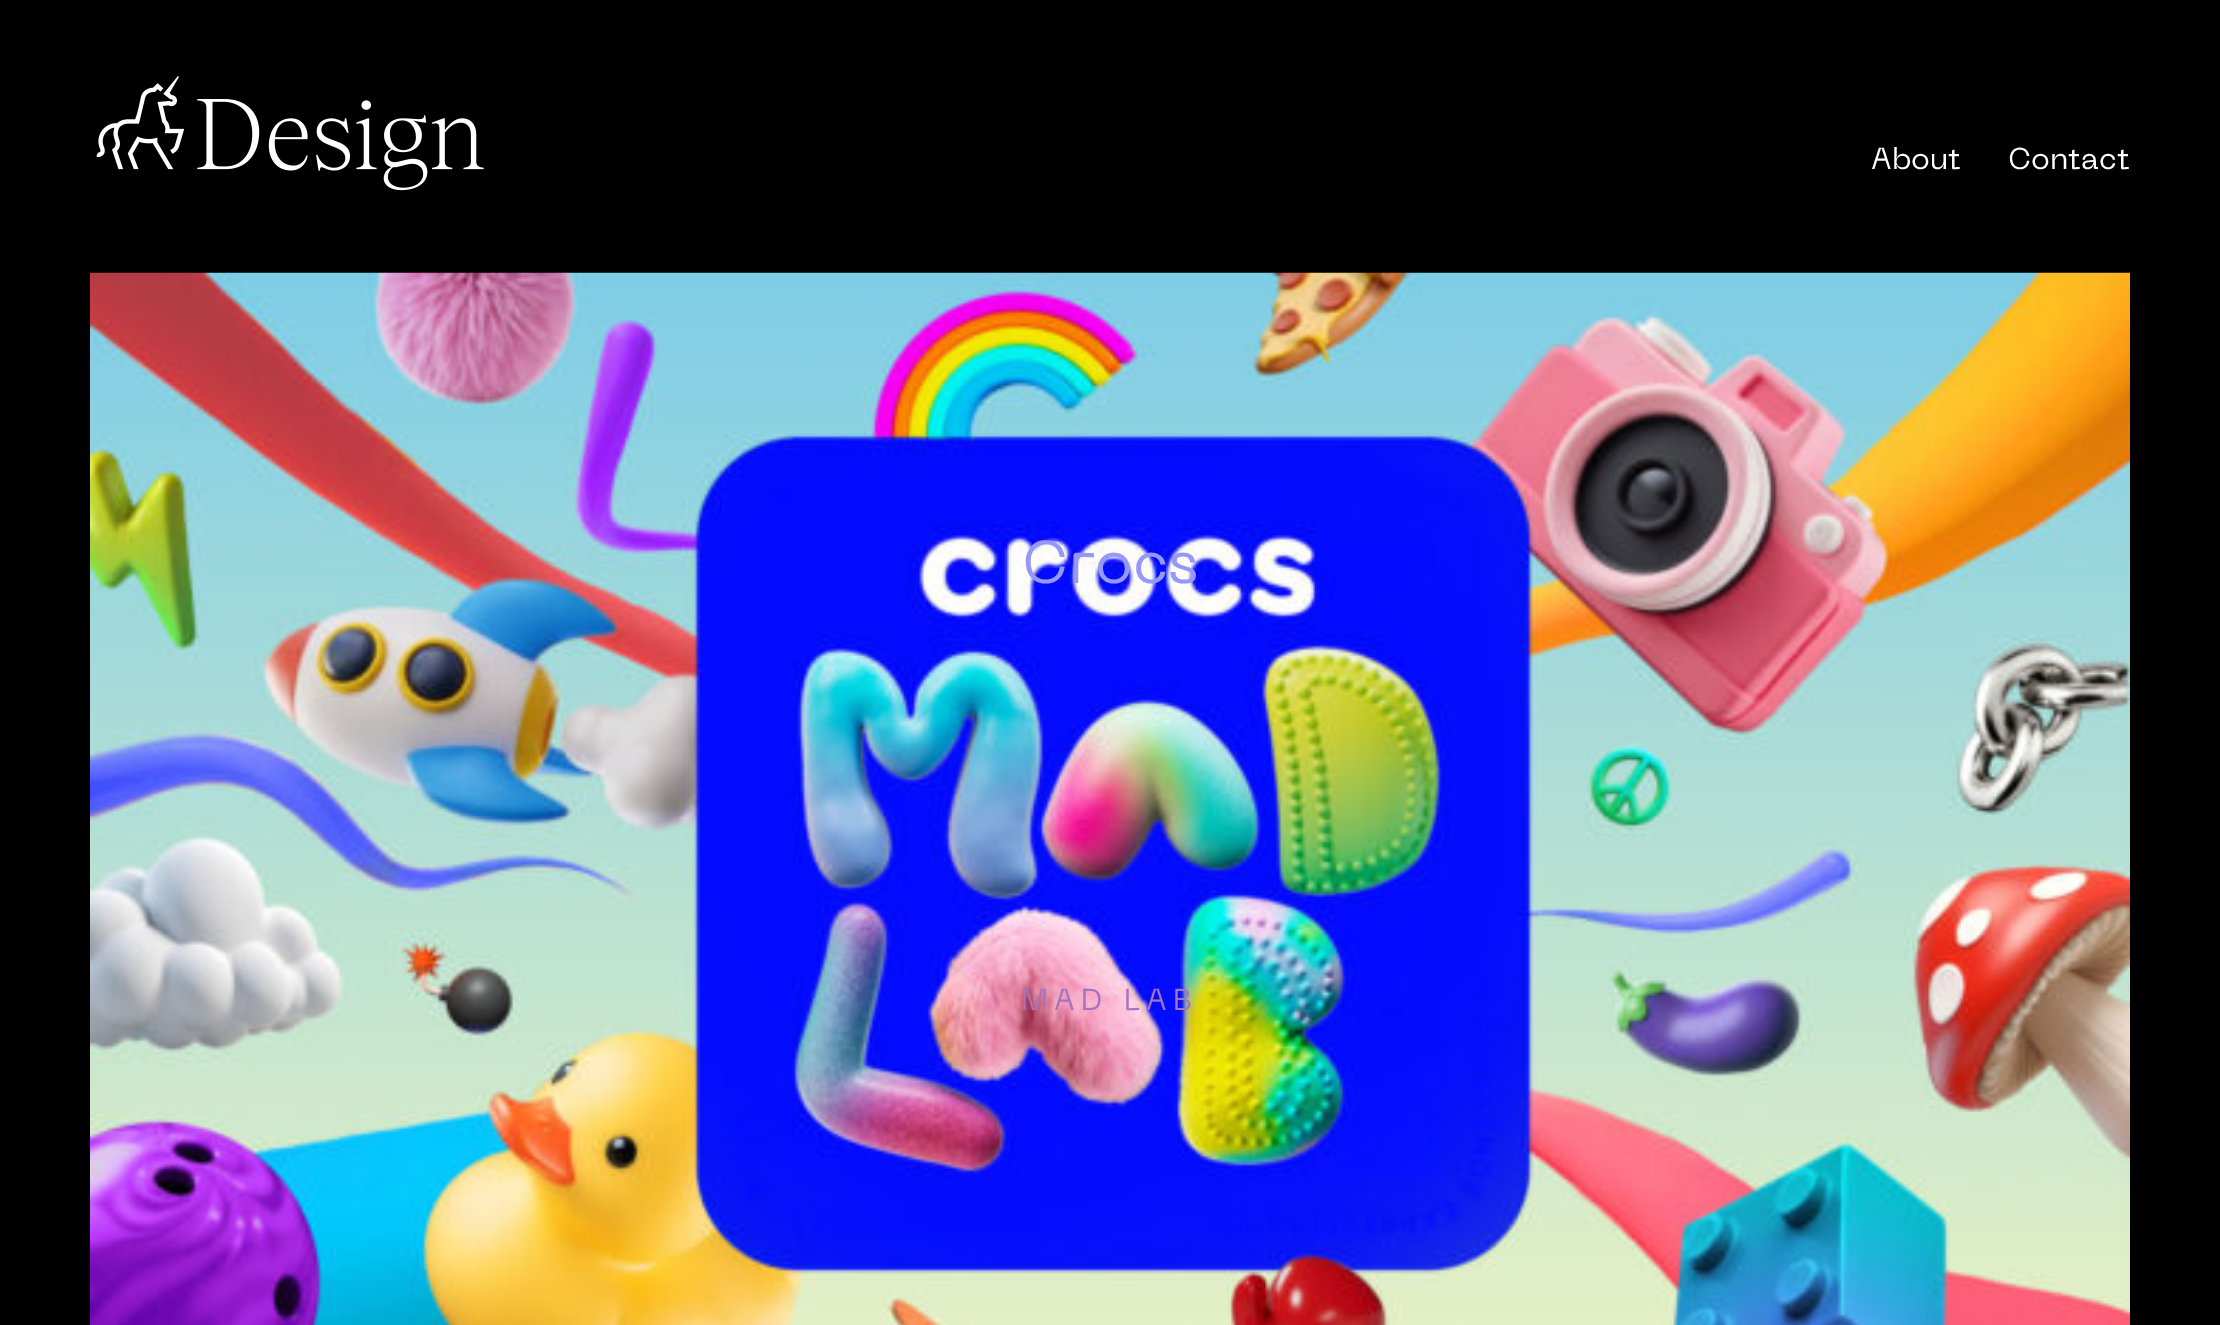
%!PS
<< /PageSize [2220 1325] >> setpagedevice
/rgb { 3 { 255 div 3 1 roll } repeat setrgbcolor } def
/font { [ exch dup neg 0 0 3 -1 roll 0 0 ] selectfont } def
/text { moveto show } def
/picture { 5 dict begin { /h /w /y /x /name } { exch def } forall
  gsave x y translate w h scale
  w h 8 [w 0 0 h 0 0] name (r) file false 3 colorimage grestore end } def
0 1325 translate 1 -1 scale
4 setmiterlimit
0 0 0 rgb
0 0 2220 1325 rectfill
(img_01.rgb) 96 76 388 115 picture
(img_02.rgb) 90 272 2040 1053 picture
/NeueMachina-Regular 30 font
255 255 255 rgb
(About) 1871 169 text
(Contact) 2008 169 text
/NeueMachina-Regular 60 font
149 152 248 rgb
(Crocs) 1022 583 text
/NeueMachina-Regular 30 font
165 115 191 rgb
1021 1010 moveto 6 0 (MAD LAB) ashow
showpage
